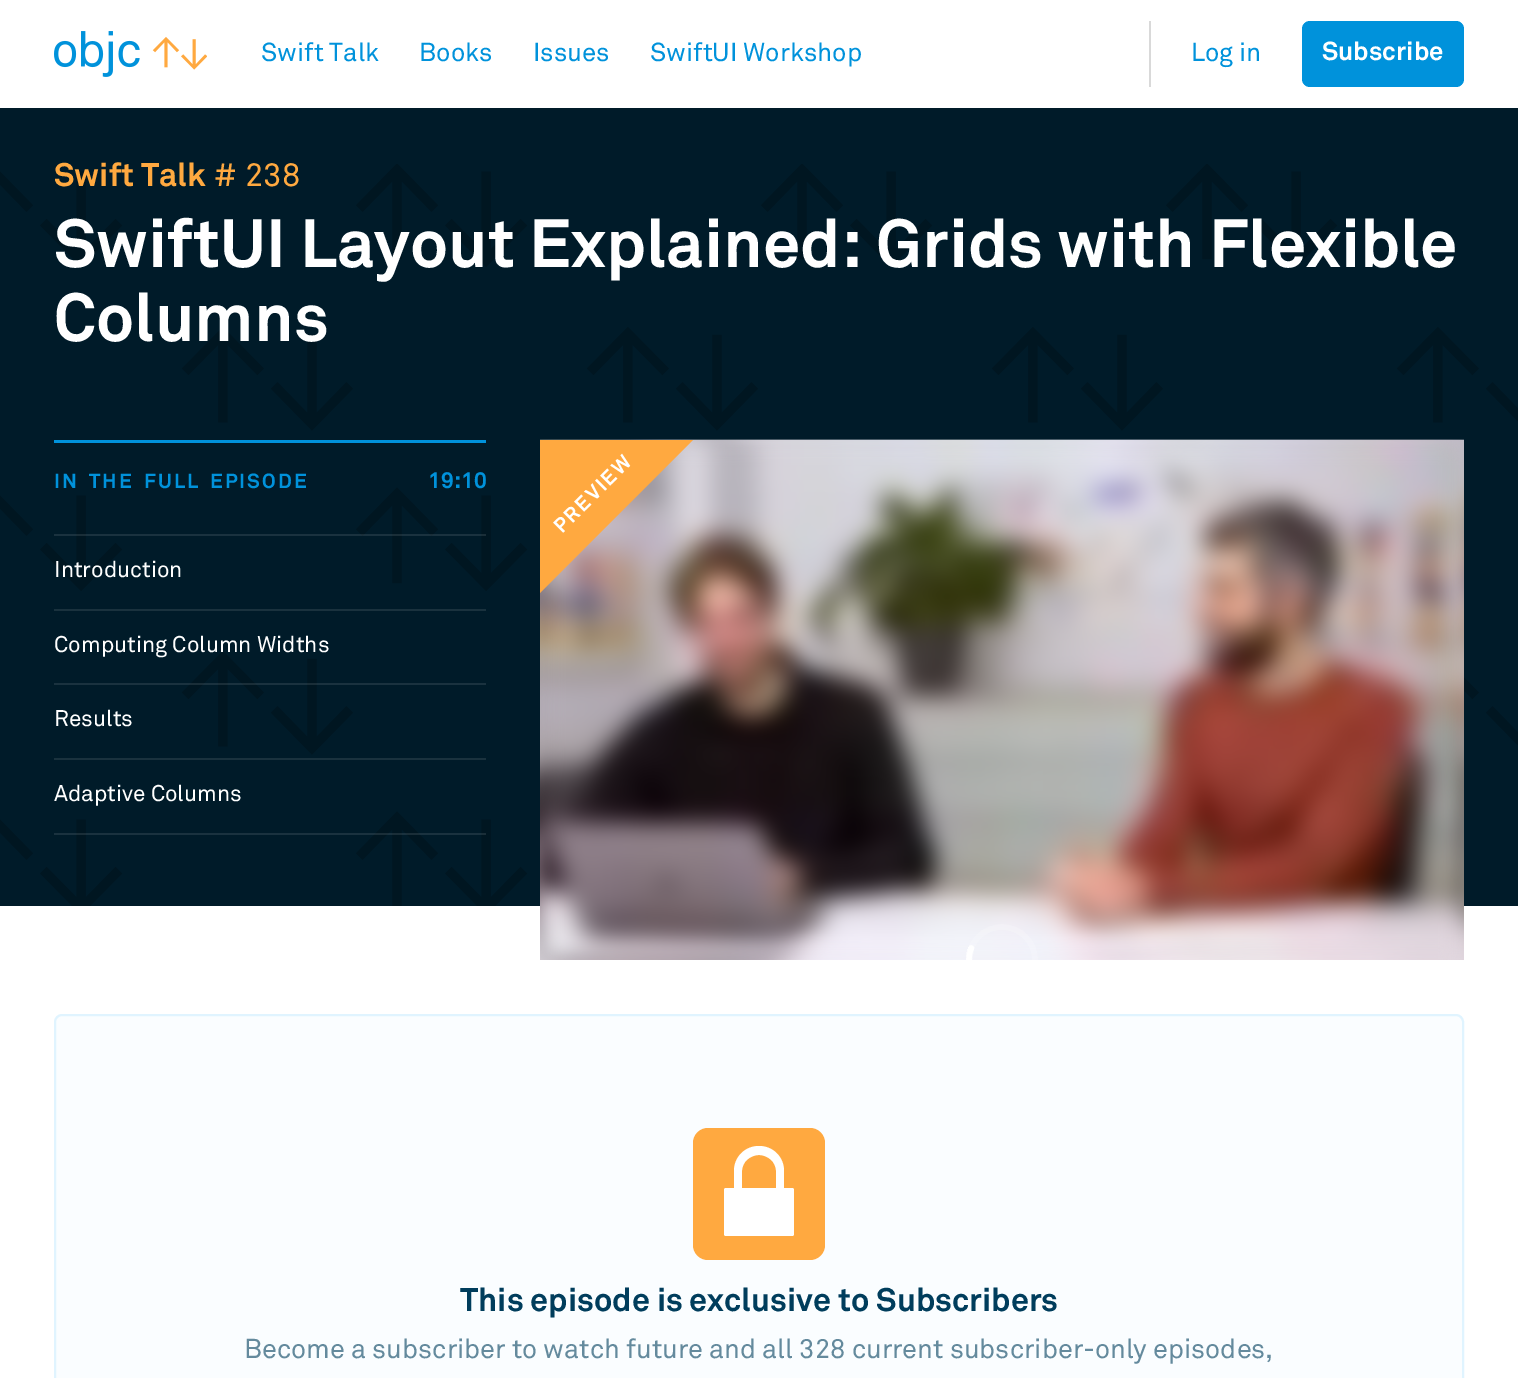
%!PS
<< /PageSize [1518 1378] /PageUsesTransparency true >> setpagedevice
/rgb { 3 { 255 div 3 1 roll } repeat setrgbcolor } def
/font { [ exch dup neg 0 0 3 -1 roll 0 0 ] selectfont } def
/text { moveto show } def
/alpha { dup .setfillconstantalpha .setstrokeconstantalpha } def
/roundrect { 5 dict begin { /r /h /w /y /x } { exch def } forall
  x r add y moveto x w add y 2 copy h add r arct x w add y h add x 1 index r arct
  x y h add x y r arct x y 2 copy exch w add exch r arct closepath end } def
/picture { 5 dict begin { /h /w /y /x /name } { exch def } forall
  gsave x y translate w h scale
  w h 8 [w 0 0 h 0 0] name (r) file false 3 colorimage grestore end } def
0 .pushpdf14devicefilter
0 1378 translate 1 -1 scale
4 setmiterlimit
255 255 255 rgb
0 0 1518 1378 rectfill
(img_01.rgb) 54 31 153 46 picture
217 217 217 rgb
1149 21 2 66 rectfill
0 146 219 rgb
1302 21 162 66 8 roundrect fill
0 27 41 rgb
0 108 1518 798 rectfill
(img_02.rgb) 0 164 1518 742 picture
0 146 219 rgb
54 440 432 3 rectfill
0.1 alpha
255 255 255 rgb
54 534 432 2 rectfill
1 alpha
26 50 62 rgb
54 609 432 2 rectfill
0.1 alpha
255 255 255 rgb
54 683 432 2 rectfill
1 alpha
26 50 62 rgb
54 758 432 2 rectfill
0.1 alpha
255 255 255 rgb
54 833 432 2 rectfill
1 alpha
(img_03.rgb) 540 439 924 521 picture
gsave
540 440 924 520 rectclip
255 169 64 rgb
387 440 moveto 153 -153 rlineto 153 153 rlineto -153 153 rlineto closepath fill
grestore
250 253 255 rgb
55 1015 1408 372 7 roundrect gsave fill grestore
224 244 255 rgb
2 setlinewidth
stroke
255 169 64 rgb
693 1128 132 132 15 roundrect fill
255 255 255 rgb
784 1188 moveto 0 -17 rlineto 0 -14 -11 -25 -25 -25 rcurveto -14 0 -25 11 -25 25 rcurveto 0 17 rlineto -8 0 rlineto -1 0 -2 1 -2 1 rcurveto 0 46 rlineto 0 0 1 1 2 1 rcurveto 66 0 rlineto 1 0 2 -1 2 -1 rcurveto 0 -46 rlineto 0 0 -1 -1 -2 -1 rcurveto closepath 776 1188 moveto 0 -17 rlineto 0 -9 -8 -16 -17 -16 rcurveto -9 0 -17 7 -17 16 rcurveto 0 17 rlineto closepath eofill
/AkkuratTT-Regular 25.75 font
0 146 219 rgb
(Swift Talk) 261 61 text
(Books) 419 61 text
(Issues) 533 61 text
(SwiftUI Workshop) 650 61 text
(Log in) 1191 61 text
/AkkuratTT-Bold 25.75 font
255 255 255 rgb
(Subscribe) 1322 60 text
/AkkuratTT-Bold 32.4 font
255 169 64 rgb
(Swift Talk) 54 186 text
/AkkuratTT-Regular 32.4 font
(# 238) 213 186 text
/AkkuratTT-Bold 67.2 font
255 255 255 rgb
(SwiftUI Layout Explained: Grids with Flexible) 54 267 text
(Columns) 54 341 text
/AkkuratTT-Bold 20.25 font
0 146 219 rgb
54 488 moveto 4 0 32 2 0 (IN THE FULL EPISODE) awidthshow
/AkkuratTT-Bold 22.5 font
(19:10) 428 488 text
/AkkuratTT-Regular 22.5 font
255 255 255 rgb
(Introduction) 54 577 text
(Computing Column Widths) 54 652 text
(Results) 54 726 text
(Adaptive Columns) 54 801 text
/AkkuratTT-Bold 20.25 font
gsave 562 534 translate -45 rotate 0 0 moveto 2 0 (PREVIEW) ashow grestore
/AkkuratTT-Bold 32.4 font
0 61 92 rgb
(This episode is exclusive to Subscribers) 460 1311 text
/AkkuratTT-Regular 27 font
100 138 157 rgb
(Become a subscriber to watch future and all 328 current subscriber-only episodes,) 244 1358 text
.poppdf14devicefilter showpage
